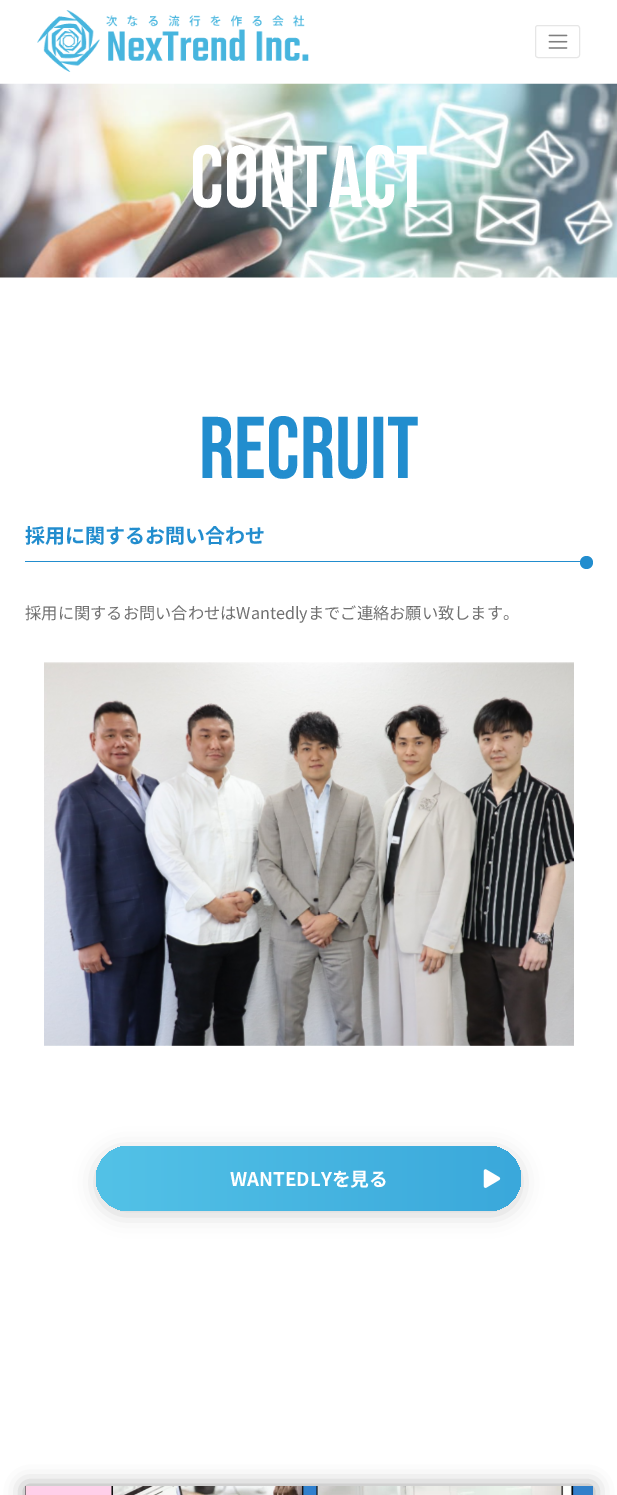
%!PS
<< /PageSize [617 1495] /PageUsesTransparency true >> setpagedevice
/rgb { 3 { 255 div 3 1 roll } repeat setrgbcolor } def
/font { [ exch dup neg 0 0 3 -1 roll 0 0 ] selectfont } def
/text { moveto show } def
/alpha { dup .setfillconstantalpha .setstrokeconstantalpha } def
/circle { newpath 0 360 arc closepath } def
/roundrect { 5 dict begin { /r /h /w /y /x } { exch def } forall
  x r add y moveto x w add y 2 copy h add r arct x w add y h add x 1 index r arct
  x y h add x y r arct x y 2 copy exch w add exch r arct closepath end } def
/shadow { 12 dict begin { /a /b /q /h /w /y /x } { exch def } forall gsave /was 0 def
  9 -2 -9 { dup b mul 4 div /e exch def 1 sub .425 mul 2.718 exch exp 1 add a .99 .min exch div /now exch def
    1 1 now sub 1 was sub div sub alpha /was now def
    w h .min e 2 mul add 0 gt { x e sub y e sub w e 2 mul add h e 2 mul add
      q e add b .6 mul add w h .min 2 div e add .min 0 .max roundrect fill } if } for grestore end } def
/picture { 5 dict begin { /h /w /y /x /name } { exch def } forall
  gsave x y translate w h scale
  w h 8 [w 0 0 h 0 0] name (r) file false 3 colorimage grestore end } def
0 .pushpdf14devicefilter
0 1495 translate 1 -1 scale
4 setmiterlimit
255 255 255 rgb
0 0 617 1495 rectfill
(img_01.rgb) 37 10 272 62 picture
230 230 230 rgb
535.5 25.5 44 32 2.5 roundrect stroke
(img_02.rgb) 548 34 20 15 picture
(img_03.rgb) 0 83 617 195 picture
34 141 206 rgb
25 561 568 1 rectfill
586.5 562.5 6.5 circle fill
(img_04.rgb) 44 662 530 384 picture
0 0 0 rgb
96 1150 425 65 32.5 10.5 0.16 shadow
gsave 96 1146 425 65 32.5 roundrect clip newpath
<< /ShadingType 2 /ColorSpace /DeviceRGB /Coords [96 1179 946 1179] /Extend [true true] /Function << /FunctionType 2 /Domain [0 1] /C0 [0.325 0.761 0.906] /C1 [0.133 0.553 0.808] /N 1 >> >> shfill grestore
(img_05.rgb) 483 1169 18 19 picture
25 1486 568 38 0 9.5 0.36 shadow
(img_06.rgb) 25 1486 568 9 picture
/BebasNeue-Regular 87.5 font
255 255 255 rgb
(CONTACT) 190 207 text
34 141 206 rgb
(RECRUIT) 199 478 text
/NotoSansJP-Bold 20 font
(採用に関するお問い合わせ) 25 543 text
/NotoSansJP-Regular 16.25 font
112 112 112 rgb
(採用に関するお問い合わせはWantedlyまでご連絡お願い致します。) 25 619 text
/NotoSansJP-Bold 18.75 font
255 255 255 rgb
(WANTEDLYを見る) 230 1186 text
.poppdf14devicefilter showpage
